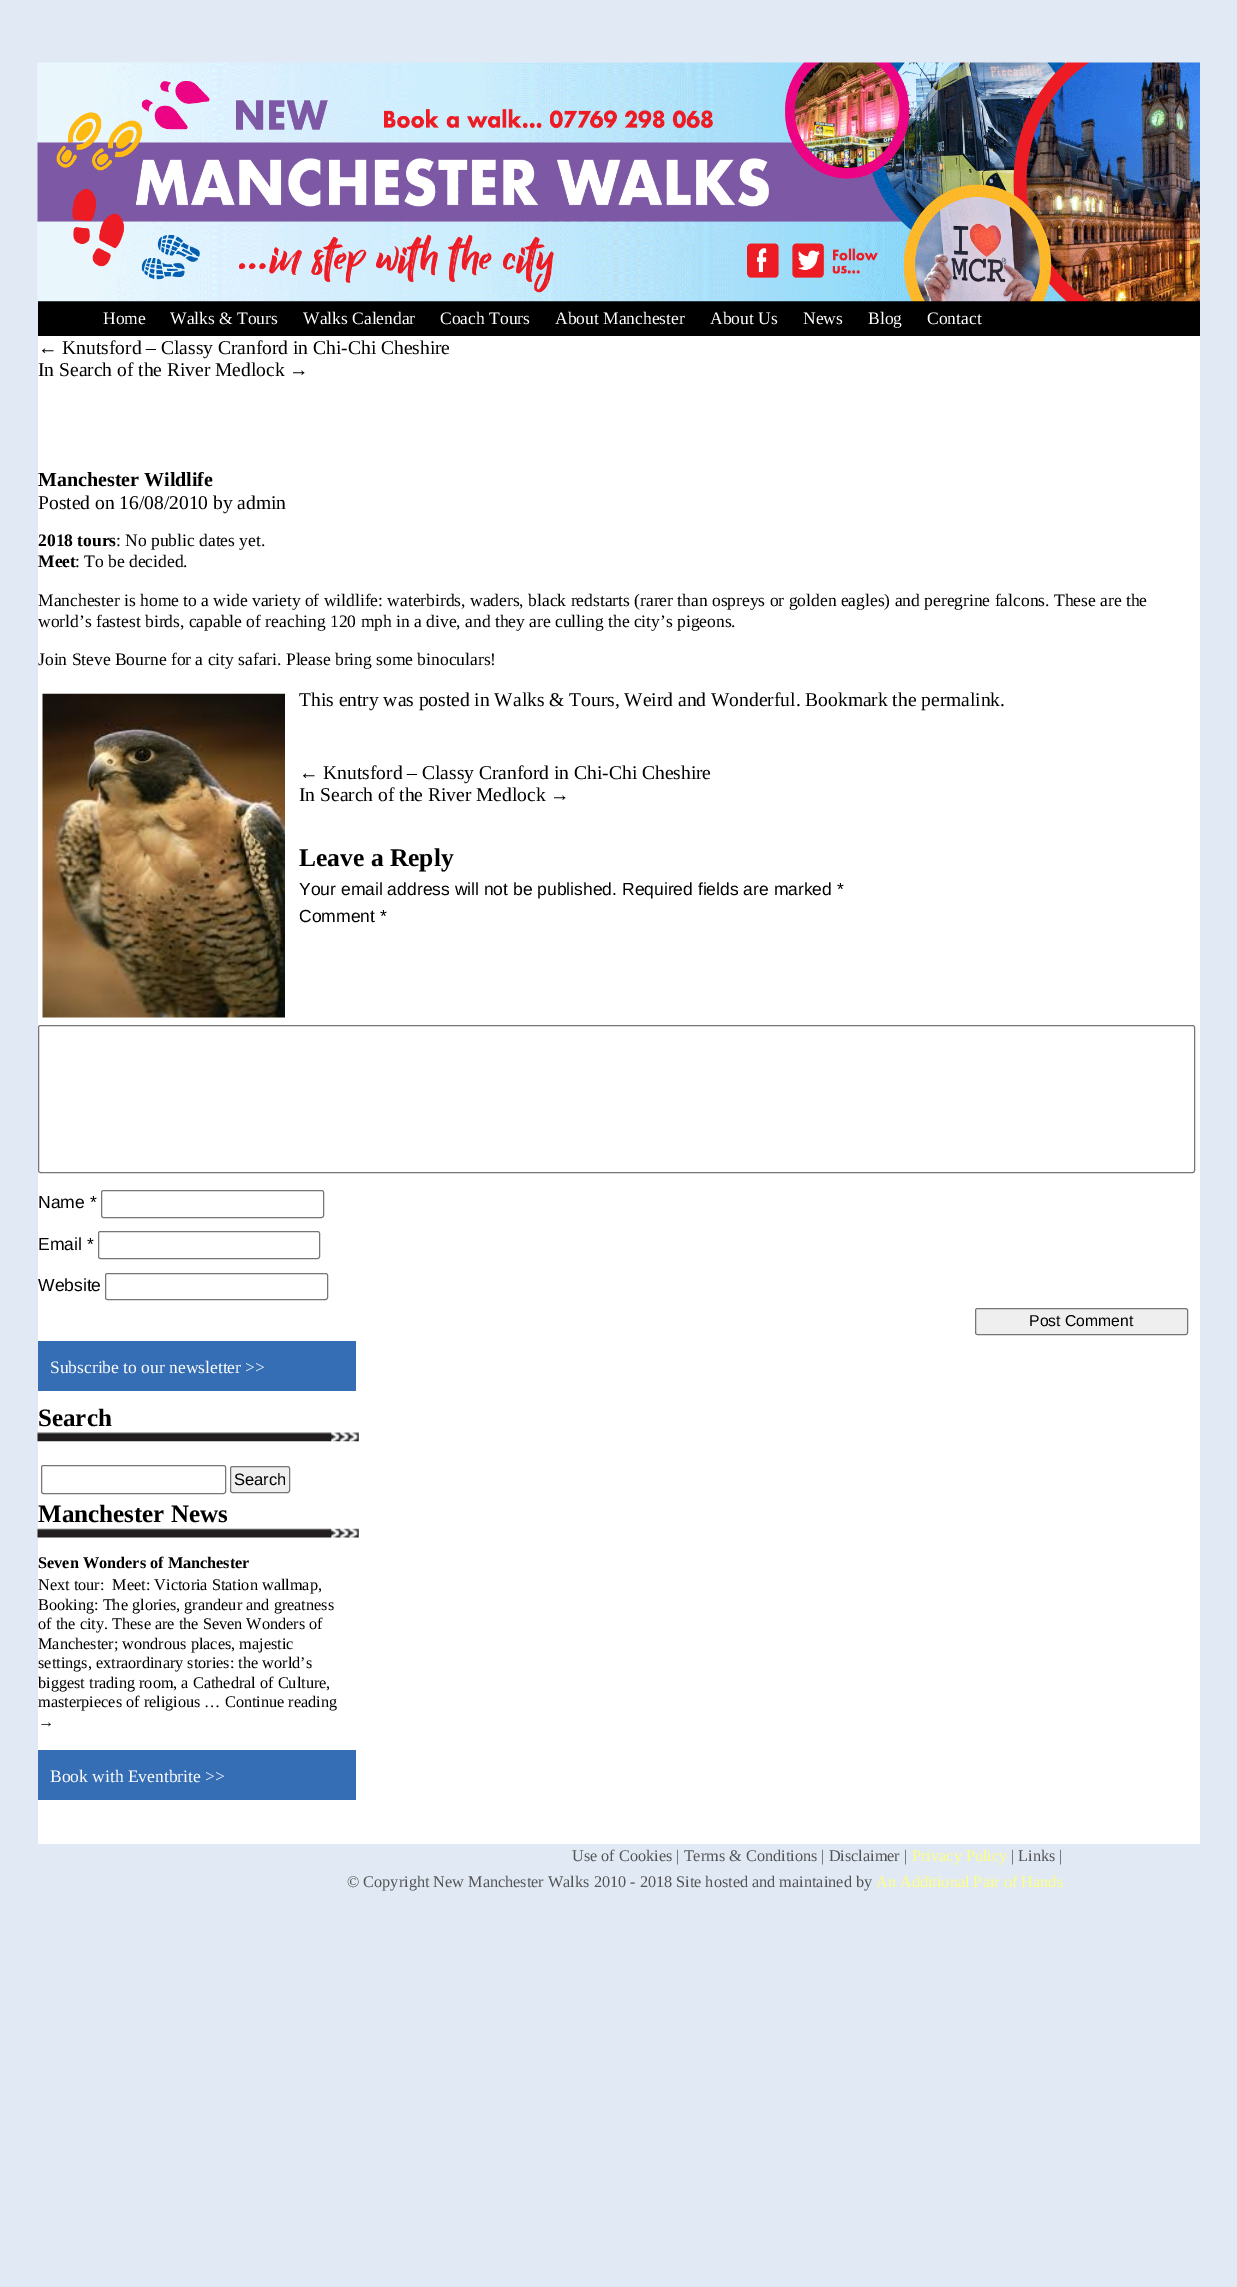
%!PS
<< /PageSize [1237 2287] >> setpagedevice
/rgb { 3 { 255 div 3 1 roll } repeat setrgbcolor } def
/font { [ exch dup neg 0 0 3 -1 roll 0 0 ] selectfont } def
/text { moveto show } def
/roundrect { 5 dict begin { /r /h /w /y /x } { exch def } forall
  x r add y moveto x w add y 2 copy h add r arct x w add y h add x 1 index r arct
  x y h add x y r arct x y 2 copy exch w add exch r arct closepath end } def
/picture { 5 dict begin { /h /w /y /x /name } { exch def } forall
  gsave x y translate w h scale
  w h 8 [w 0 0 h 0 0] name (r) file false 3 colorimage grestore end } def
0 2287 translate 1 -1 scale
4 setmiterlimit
225 234 244 rgb
0 0 1237 2287 rectfill
255 255 255 rgb
38 336 1162 1508 rectfill
0 0 0 rgb
38 301 1162 35 rectfill
(img_01.rgb) 37 62 1163 240 picture
(img_02.rgb) 42 693 243 325 picture
118 118 118 rgb
38.5 1025.5 1156 147 2 roundrect stroke
101.5 1190.5 222 27 2 roundrect stroke
98.5 1231.5 221 27 2 roundrect stroke
105.5 1273.5 222 26 2 roundrect stroke
239 239 239 rgb
975.5 1308.5 212 26 2 roundrect gsave fill grestore
118 118 118 rgb
stroke
53 110 180 rgb
38 1341 318 50 rectfill
(img_03.rgb) 37 1432 322 10 picture
118 118 118 rgb
41.5 1465.5 184 28 2 roundrect stroke
239 239 239 rgb
230.5 1466.5 59 26 2 roundrect gsave fill grestore
118 118 118 rgb
stroke
(img_04.rgb) 37 1528 322 10 picture
53 110 180 rgb
38 1750 318 50 rectfill
/LiberationSerif-Regular 17.5 font
255 255 255 rgb
(Home) 103 324 text
(Walks & Tours) 170 324 text
(Walks Calendar) 303 324 text
(Coach Tours) 440 324 text
(About Manchester) 555 324 text
(About Us) 710 324 text
(News) 803 324 text
(Blog) 868 324 text
(Contact) 927 324 text
/LiberationSerif-Regular 19.5 font
0 0 0 rgb
(← Knutsford – Classy Cranford in Chi-Chi Cheshire) 38 354 text
(In Search of the River Medlock →) 38 376 text
/LiberationSerif-Bold 20 font
(Manchester Wildlife) 38 486 text
/LiberationSerif-Regular 19.5 font
(Posted on 16/08/2010 by admin) 38 509 text
/LiberationSerif-Bold 17.5 font
(2018 tours) 38 546 text
/LiberationSerif-Regular 17.5 font
(: No public dates yet.) 116 546 text
/LiberationSerif-Bold 17.5 font
(Meet) 38 567 text
/LiberationSerif-Regular 17.5 font
(: To be decided.) 75 567 text
(Manchester is home to a wide variety of wildlife: waterbirds, waders, black redstarts \(rarer than ospreys or golden eagles\) and peregrine falcons. These are the) 38 606 text
(world’s fastest birds, capable of reaching 120 mph in a dive, and they are culling the city’s pigeons.) 38 627 text
(Join Steve Bourne for a city safari. Please bring some binoculars!) 38 665 text
/LiberationSerif-Regular 19.5 font
(This entry was posted in Walks & Tours, Weird and Wonderful. Bookmark the permalink.) 299 706 text
(← Knutsford – Classy Cranford in Chi-Chi Cheshire) 299 779 text
(In Search of the River Medlock →) 299 801 text
/LiberationSerif-Bold 25.5 font
(Leave a Reply) 299 866 text
/LiberationSans-Regular 17.5 font
(Your email address will not be published. Required fields are marked *) 299 895 text
(Comment *) 299 922 text
(Name *) 38 1208 text
(Email *) 38 1250 text
(Website) 38 1291 text
/LiberationSans-Regular 15.75 font
(Post Comment) 1029 1326 text
/LiberationSerif-Regular 17.5 font
255 255 255 rgb
(Subscribe to our newsletter >>) 50 1373 text
/LiberationSerif-Bold 25 font
0 0 0 rgb
(Search) 38 1426 text
/LiberationSans-Regular 16.5 font
(Search) 234 1485 text
/LiberationSerif-Bold 25 font
(Manchester News) 38 1522 text
/LiberationSerif-Bold 16.25 font
(Seven Wonders of Manchester) 38 1568 text
/LiberationSerif-Regular 16.25 font
(Next tour:  Meet: Victoria Station wallmap,) 38 1590 text
(Booking: The glories, grandeur and greatness) 38 1610 text
(of the city. These are the Seven Wonders of) 38 1629 text
(Manchester; wondrous places, majestic) 38 1649 text
(settings, extraordinary stories: the world’s) 38 1668 text
(biggest trading room, a Cathedral of Culture,) 38 1688 text
(masterpieces of religious … Continue reading) 38 1707 text
(→) 38 1727 text
/LiberationSerif-Regular 17.5 font
255 255 255 rgb
(Book with Eventbrite >>) 50 1782 text
/LiberationSerif-Regular 16.25 font
84 84 86 rgb
(Use of Cookies | Terms & Conditions | Disclaimer |) 572 1861 text
255 255 128 rgb
(Privacy Policy) 912 1861 text
84 84 86 rgb
(| Links |) 1011 1861 text
(© Copyright New Manchester Walks 2010 - 2018 Site hosted and maintained by) 347 1887 text
255 255 128 rgb
(An Additional Pair of Hands) 876 1887 text
showpage
